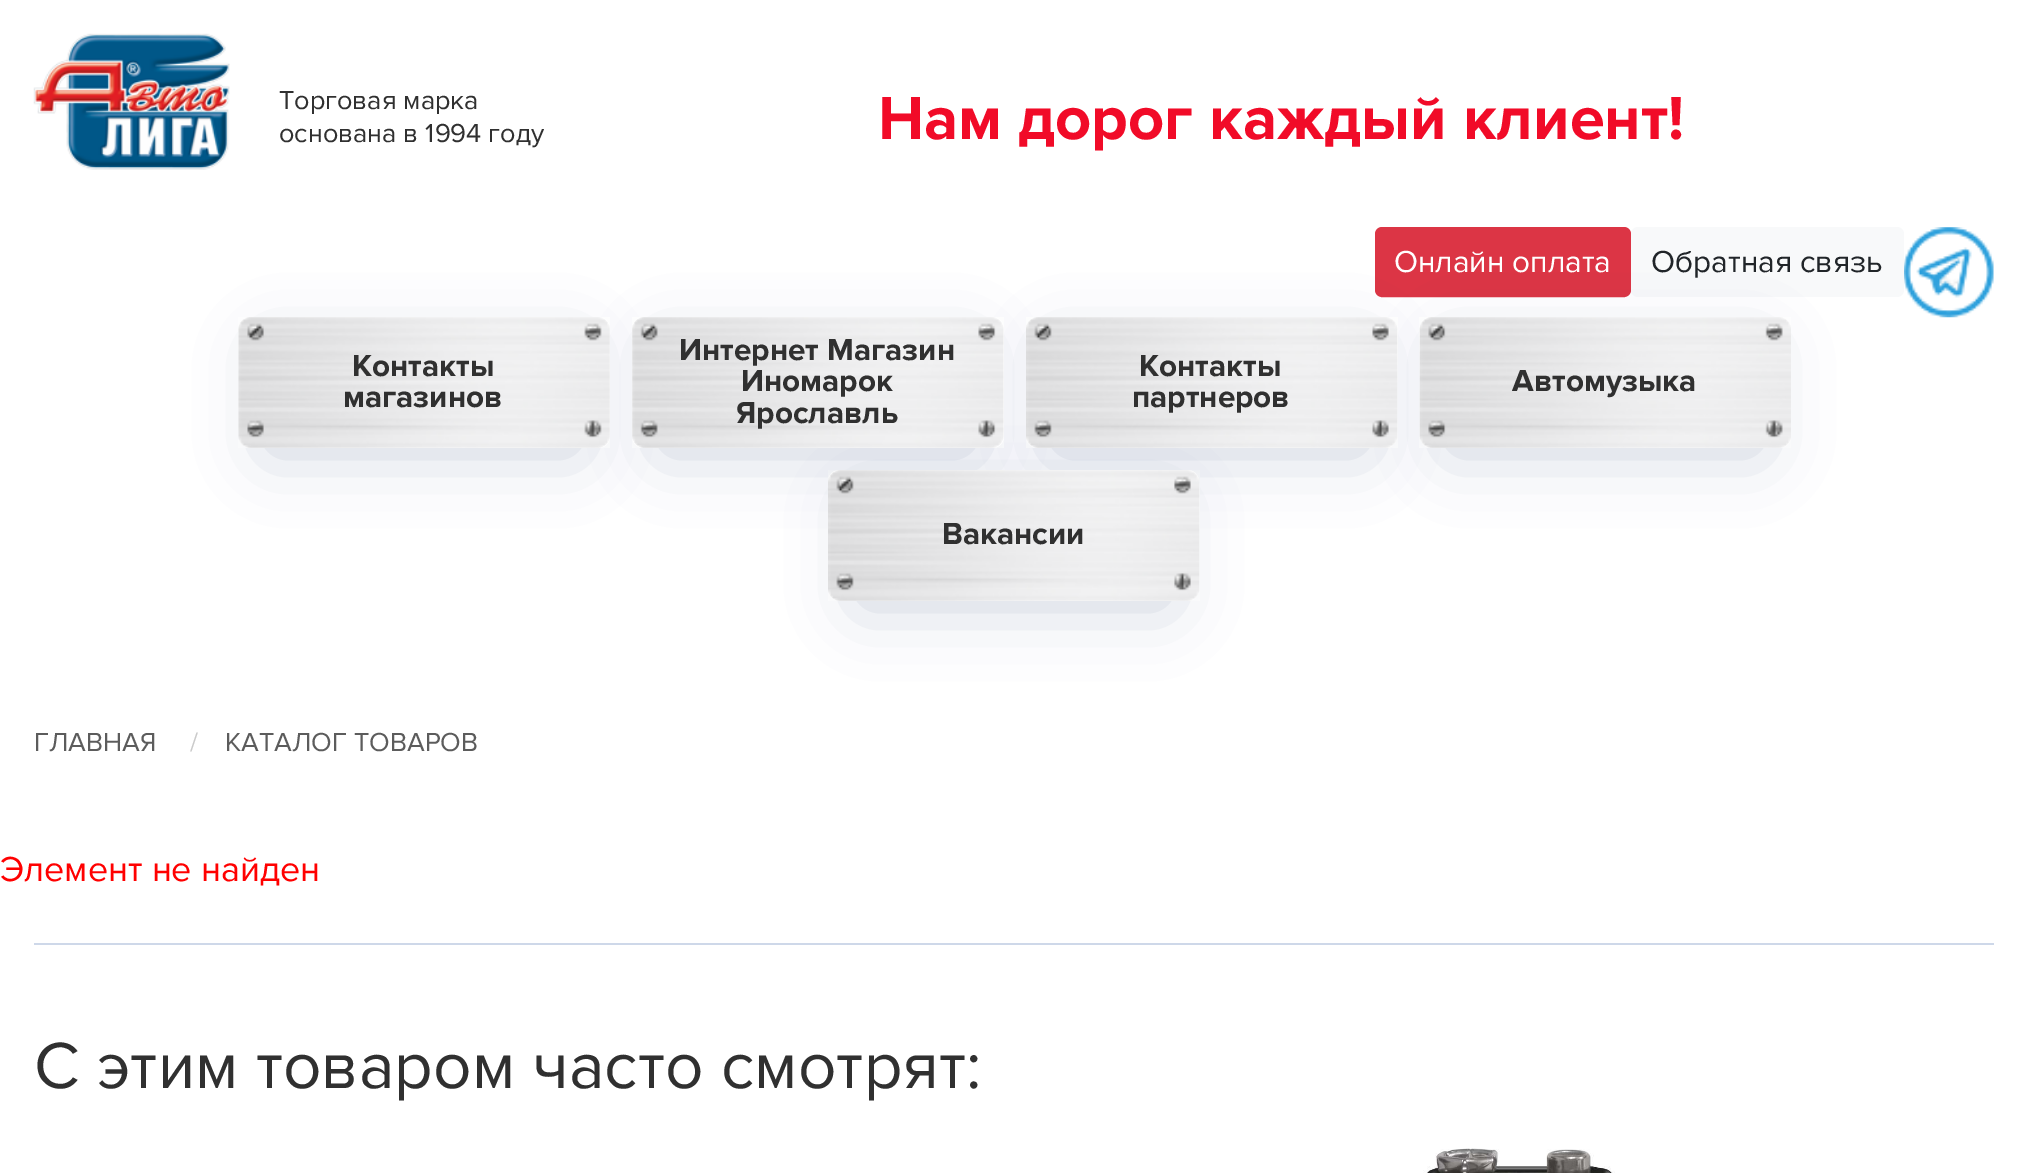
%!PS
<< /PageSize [2026 1173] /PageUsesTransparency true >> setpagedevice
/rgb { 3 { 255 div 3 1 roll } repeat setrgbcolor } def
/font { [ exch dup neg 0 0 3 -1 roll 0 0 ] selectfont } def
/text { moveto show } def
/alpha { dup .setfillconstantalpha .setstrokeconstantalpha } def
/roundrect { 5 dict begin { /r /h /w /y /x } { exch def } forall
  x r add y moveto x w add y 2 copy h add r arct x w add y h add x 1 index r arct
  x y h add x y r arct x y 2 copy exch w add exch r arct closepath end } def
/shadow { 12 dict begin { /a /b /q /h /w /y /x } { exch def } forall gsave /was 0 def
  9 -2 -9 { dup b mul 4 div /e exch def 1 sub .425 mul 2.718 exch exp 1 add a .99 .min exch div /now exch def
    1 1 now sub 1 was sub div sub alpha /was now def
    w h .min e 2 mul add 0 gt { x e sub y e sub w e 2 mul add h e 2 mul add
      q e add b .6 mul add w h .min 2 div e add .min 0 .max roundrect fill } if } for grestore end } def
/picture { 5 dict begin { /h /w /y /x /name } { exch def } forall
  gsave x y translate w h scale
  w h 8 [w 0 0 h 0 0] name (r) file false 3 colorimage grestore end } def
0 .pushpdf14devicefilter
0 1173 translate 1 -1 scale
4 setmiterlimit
255 255 255 rgb
0 0 2026 1173 rectfill
(img_01.rgb) 33 33 197 137 picture
220 53 69 rgb
1376 228 254 68 6 roundrect gsave fill grestore
2 setlinewidth
stroke
248 249 250 rgb
1631 227 273 70 7 roundrect fill
(img_02.rgb) 1904 227 90 91 picture
0 31 82 rgb
268 349 310 103 0 34 0.2 shadow
662 349 310 103 0 34 0.2 shadow
255 255 255 rgb
239 317 371 131 11 roundrect fill
(img_03.rgb) 238 317 372 131 picture
0 31 82 rgb
1055 349 311 103 0 34 0.2 shadow
860 502 308 103 0 34 0.2 shadow
255 255 255 rgb
632 317 372 131 11 roundrect fill
(img_04.rgb) 632 317 372 131 picture
0 31 82 rgb
1449 349 311 103 0 34 0.2 shadow
255 255 255 rgb
1026 317 371 131 11 roundrect fill
(img_05.rgb) 1026 317 372 131 picture
1420 317 371 131 11 roundrect fill
(img_06.rgb) 1419 317 372 131 picture
828 470 371 131 11 roundrect fill
(img_07.rgb) 828 470 372 131 picture
206 216 233 rgb
34 943 1960 2 rectfill
(img_08.rgb) 1423 1148 192 25 picture
/ProximaNova-Regular 27 font
48 48 48 rgb
(Торговая марка) 279 109 text
(основана в 1994 году) 279 142 text
/ProximaNova-Bold 63 font
241 11 40 rgb
(Нам дорог каждый клиент!) 878 139 text
/ProximaNova-Regular 31.5 font
255 255 255 rgb
(Онлайн оплата) 1394 272 text
33 37 41 rgb
(Обратная связь) 1651 272 text
/ProximaNova-Bold 31.5 font
48 48 48 rgb
(Контакты) 352 376 text
(магазинов) 343 407 text
(Интернет Магазин) 679 360 text
(Иномарок) 741 391 text
(Ярославль) 736 423 text
(Контакты) 1139 376 text
(партнеров) 1132 407 text
(Автомузыка) 1512 391 text
(Вакансии) 942 544 text
/ProximaNova-Regular 27 font
92 92 92 rgb
(ГЛАВНАЯ) 34 751 text
202 202 202 rgb
(/) 190 751 text
92 92 92 rgb
(КАТАЛОГ ТОВАРОВ) 225 751 text
/ProximaNova-Regular 36 font
255 0 0 rgb
(Элемент не найден) 0 881 text
/ProximaNova-Regular 67.5 font
48 48 48 rgb
(С этим товаром часто смотрят:) 34 1088 text
.poppdf14devicefilter showpage
